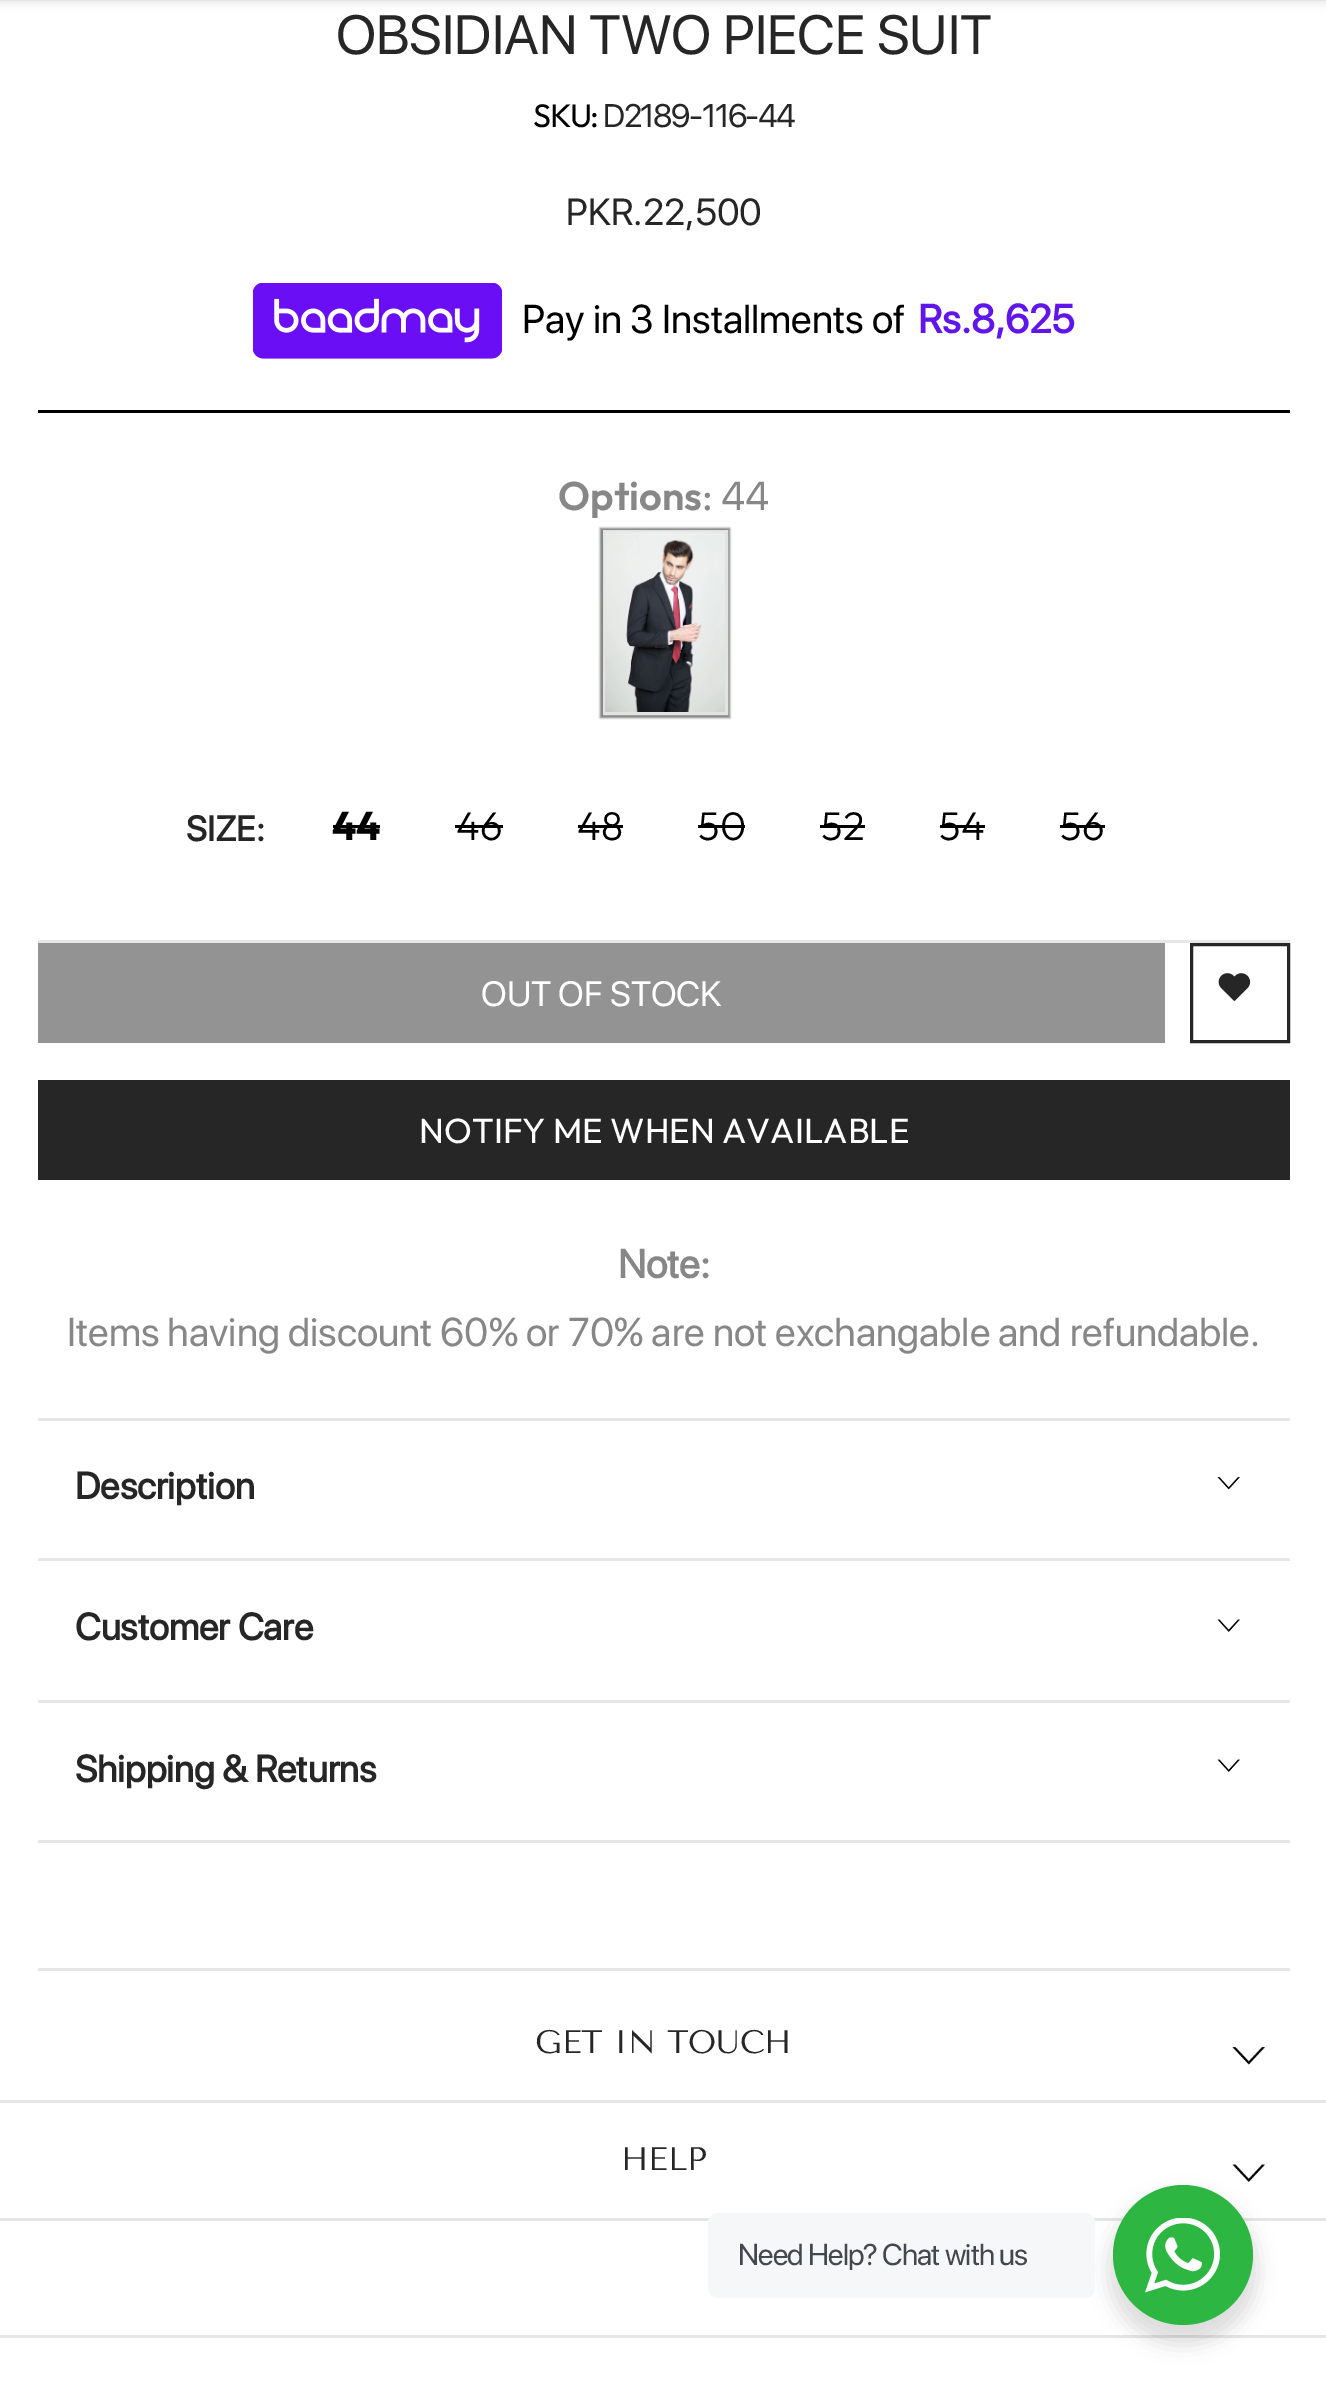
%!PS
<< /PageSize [1326 2399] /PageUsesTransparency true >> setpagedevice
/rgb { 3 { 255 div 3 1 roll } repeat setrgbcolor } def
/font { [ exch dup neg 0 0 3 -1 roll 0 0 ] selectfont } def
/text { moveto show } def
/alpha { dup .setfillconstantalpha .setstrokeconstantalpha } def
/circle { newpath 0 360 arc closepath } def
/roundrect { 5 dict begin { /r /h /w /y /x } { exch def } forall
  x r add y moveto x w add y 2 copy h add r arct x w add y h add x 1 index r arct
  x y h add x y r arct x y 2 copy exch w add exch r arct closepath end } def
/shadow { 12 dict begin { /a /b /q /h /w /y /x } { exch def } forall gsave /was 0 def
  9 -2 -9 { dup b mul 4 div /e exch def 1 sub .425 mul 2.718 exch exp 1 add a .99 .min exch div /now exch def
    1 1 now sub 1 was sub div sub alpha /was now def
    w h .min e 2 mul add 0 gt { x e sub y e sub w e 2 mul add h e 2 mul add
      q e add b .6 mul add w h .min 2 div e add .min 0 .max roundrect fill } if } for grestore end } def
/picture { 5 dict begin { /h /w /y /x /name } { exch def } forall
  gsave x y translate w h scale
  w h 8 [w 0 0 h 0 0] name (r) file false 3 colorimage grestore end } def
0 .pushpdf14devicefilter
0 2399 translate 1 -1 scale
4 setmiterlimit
255 255 255 rgb
0 0 1326 2399 rectfill
0 0 0 rgb
0 -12 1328 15 0 4 0.1 shadow
229 229 229 rgb
0 0 1326 1 rectfill
0 0 0 rgb
38 410 1252 3 rectfill
(img_01.rgb) 253 283 249 76 picture
600 528 130 190 0 1 0.49 shadow
227 227 227 rgb
3 setlinewidth
604.5 531.5 122 182 rectstroke
(img_02.rgb) 605 532 120 180 picture
230 230 230 rgb
38 940 1252 3 rectfill
0 0 0 rgb
333 825 47 3 rectfill
455 825 48 3 rectfill
578 825 45 3 rectfill
698 825 47 3 rectfill
820 825 45 3 rectfill
940 825 45 3 rectfill
1060 825 45 3 rectfill
147 147 147 rgb
38 943 1127 100 rectfill
38 38 38 rgb
1191.5 944.5 97 97 rectstroke
(img_03.rgb) 1218 973 33 28 picture
38 1080 1252 100 rectfill
230 230 230 rgb
38 1418 1252 3 rectfill
(img_04.rgb) 1217 1477 23 13 picture
38 1558 1252 3 rectfill
(img_05.rgb) 1217 1619 23 13 picture
38 1700 1252 3 rectfill
38 1840 1252 3 rectfill
(img_05.rgb) 1217 1759 23 13 picture
38 1968 1252 3 rectfill
0 2100 1326 3 rectfill
(img_06.rgb) 1232 2047 33 18 picture
0 2218 1326 3 rectfill
(img_07.rgb) 1232 2164 33 18 picture
0 2335 1326 3 rectfill
0 0 0 rgb
1108 2195 150 150 75 10 0.14 shadow
245 247 249 rgb
708 2213 387 85 10 roundrect fill
45 183 66 rgb
1183 2255 70 circle fill
(img_08.rgb) 1145 2218 75 75 picture
/SFProDisplay-Regular 55 font
38 38 38 rgb
(OBSIDIAN TWO PIECE SUIT) 336 54 text
/Outfit-Regular 32.5 font
0 0 0 rgb
533 127 moveto -1.5 0 (SKU:) ashow
/SFProDisplay-Regular 32.5 font
38 38 38 rgb
603 127 moveto -1.5 0 (D2189-116-44) ashow
/SFProDisplay-Regular 37.5 font
(PKR.22,500) 566 225 text
/SFProDisplay-Regular 40 font
0 0 0 rgb
(Pay in 3 Installments of) 522 333 text
/SFProDisplay-Bold 40 font
96 22 235 rgb
(Rs.8,625) 918 333 text
/Outfit-SemiBold 40 font
135 135 135 rgb
(Options) 558 510 text
/Outfit-Regular 40 font
(:) 702 510 text
/SFProDisplay-Regular 40 font
(44) 721 510 text
/SFProDisplay-Bold 35 font
38 38 38 rgb
(SIZE:) 186 841 text
/Outfit-Bold 40 font
0 0 0 rgb
(44) 332 840 text
/Outfit-Light 40 font
(46) 456 840 text
(48) 577 840 text
(50) 698 840 text
(52) 821 840 text
(54) 939 840 text
(56) 1060 840 text
/SFProDisplay-Regular 35 font
255 255 255 rgb
(OUT OF STOCK) 481 1006 text
/Outfit-Regular 35 font
(NOTIFY ME WHEN AVAILABLE) 419 1143 text
/SFProDisplay-Bold 40 font
135 135 135 rgb
(Note:) 618 1278 text
/SFProDisplay-Regular 40 font
(Items having discount 60% or 70% are not exchangable and refundable.) 67 1346 text
/SFProDisplay-Bold 37.5 font
38 38 38 rgb
(Description) 75 1499 text
(Customer Care) 75 1640 text
(Shipping & Returns) 75 1782 text
/TenorSans-Regular 32.5 font
(GET IN TOUCH) 535 2053 text
(HELP) 621 2170 text
/SFProDisplay-Regular 30 font
67 71 78 rgb
738 2265 moveto -0.9 0 (Need Help? Chat with us) ashow
.poppdf14devicefilter showpage
